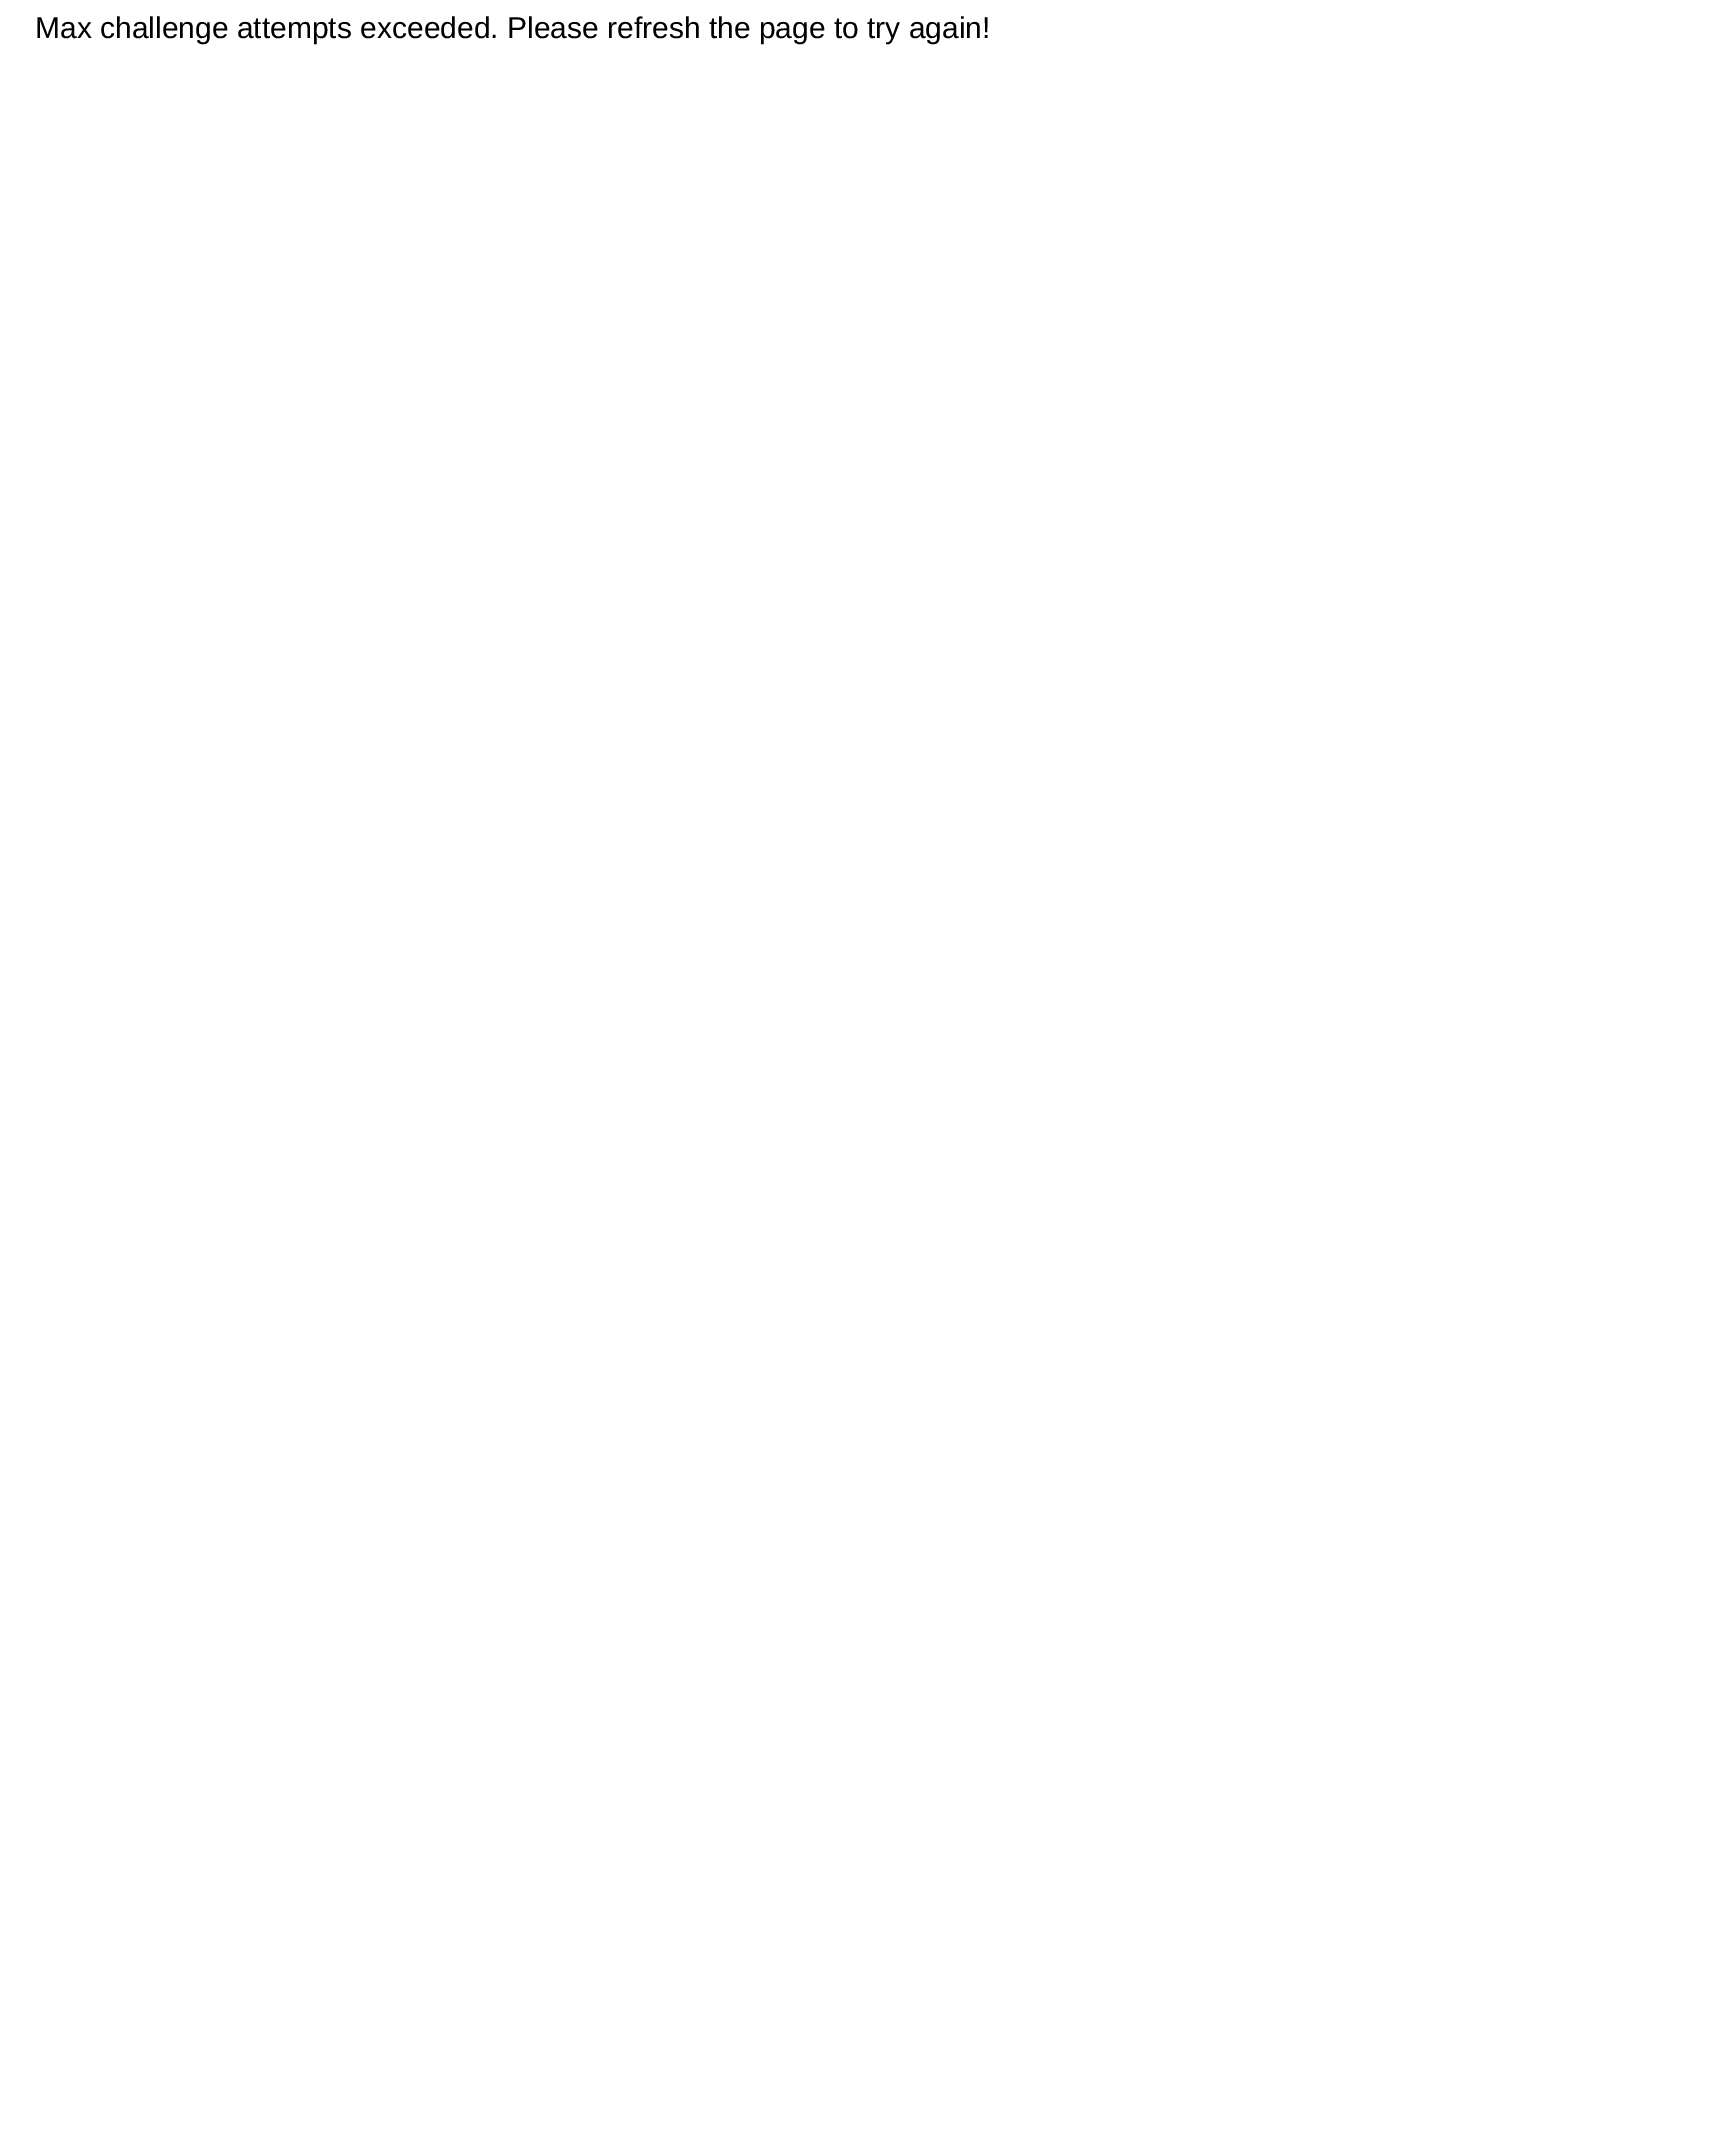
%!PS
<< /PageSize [1728 2134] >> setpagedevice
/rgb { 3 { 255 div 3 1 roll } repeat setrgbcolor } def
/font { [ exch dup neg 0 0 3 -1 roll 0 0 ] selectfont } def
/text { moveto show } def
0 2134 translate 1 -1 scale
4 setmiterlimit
255 255 255 rgb
0 0 1728 2134 rectfill
/LiberationSans-Regular 30 font
0 0 0 rgb
(Max challenge attempts exceeded. Please refresh the page to try again!) 35 38 text
showpage
